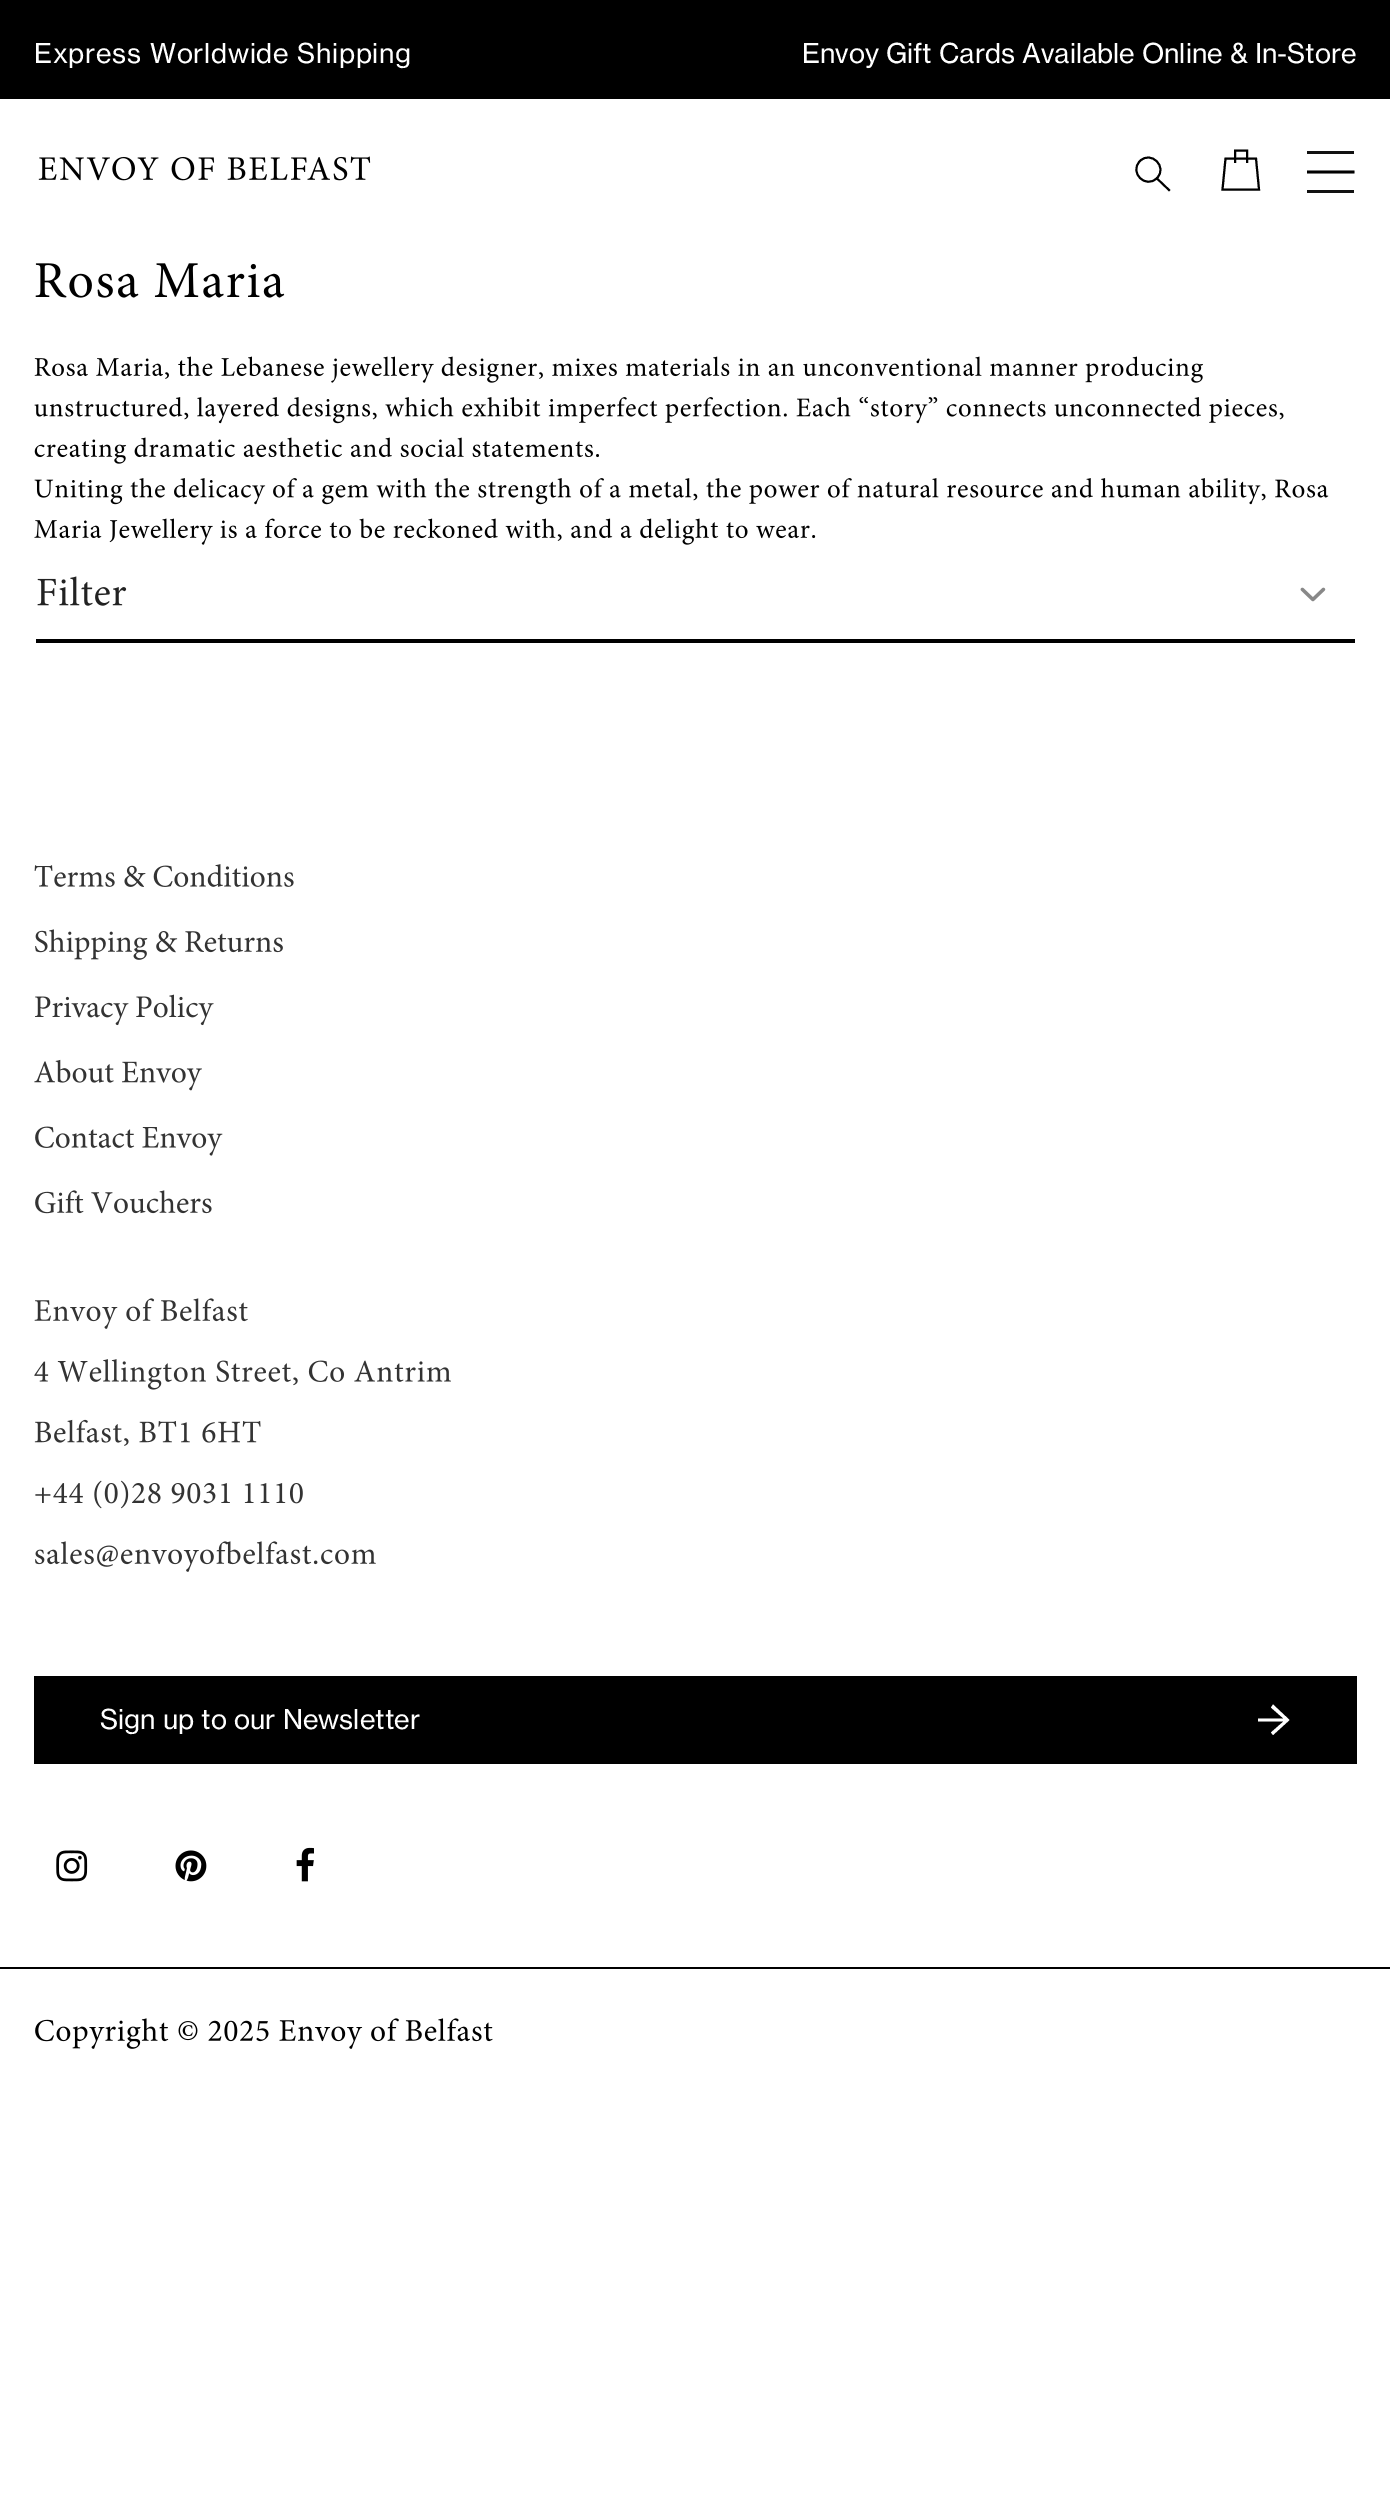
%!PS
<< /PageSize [1390 2514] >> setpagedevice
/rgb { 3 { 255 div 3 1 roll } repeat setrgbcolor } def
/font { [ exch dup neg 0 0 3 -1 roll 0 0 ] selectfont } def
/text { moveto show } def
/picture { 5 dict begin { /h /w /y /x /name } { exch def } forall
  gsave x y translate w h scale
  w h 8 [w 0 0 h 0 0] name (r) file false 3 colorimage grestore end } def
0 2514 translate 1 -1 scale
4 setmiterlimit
255 255 255 rgb
0 0 1390 2514 rectfill
0 0 0 rgb
0 0 1390 99 rectfill
(img_01.rgb) 38 156 333 25 picture
1.9 setlinewidth
1140 161 moveto 11 -11 28 6 17 17 rcurveto -11 11.5 -28.5 -5.5 -17 -17 rcurveto closepath stroke
2 setlinecap
1157 178.5 moveto 12 11.5 rlineto stroke
2 setlinewidth
0 setlinecap
1225.5 158.5 moveto -3 31 rlineto 36.5 0 rlineto -3 -31 rlineto closepath 1235 163 moveto 0 -12.5 rlineto 12 0 rlineto 0 12.5 rlineto stroke
17 17 17 rgb
1307 151 47 3 rectfill
0 0 0 rgb
2.8 setlinewidth
2 setlinecap
1308.5 172 moveto 44.5 0 rlineto stroke
17 17 17 rgb
1307 190 47 3 rectfill
(img_02.rgb) 35 263 250 35 picture
(img_03.rgb) 34 356 1170 27 picture
(img_04.rgb) 34 397 1250 27 picture
(img_05.rgb) 34 437 565 27 picture
(img_06.rgb) 34 478 1295 27 picture
(img_07.rgb) 34 518 782 27 picture
(img_08.rgb) 37 576 90 30 picture
(img_09.rgb) 1300 587 26 15 picture
0 0 0 rgb
36 639 1319 4 rectfill
(img_10.rgb) 34 864 260 23 picture
(img_11.rgb) 35 929 248 31 picture
(img_12.rgb) 35 994 179 32 picture
(img_13.rgb) 34 1059 168 32 picture
(img_14.rgb) 35 1126 188 30 picture
(img_15.rgb) 35 1190 177 24 picture
(img_16.rgb) 34 1298 214 31 picture
(img_17.rgb) 34 1359 417 31 picture
(img_18.rgb) 34 1419 227 27 picture
(img_19.rgb) 35 1480 268 29 picture
(img_20.rgb) 35 1541 341 31 picture
34 1676 1323 88 rectfill
255 255 255 rgb
1273 1735 moveto 16.5 -15 rlineto -16.5 -15.5 rlineto -2 3 rlineto 12.5 11 rlineto -25.5 0 rlineto 0 3 rlineto 25.5 0 rlineto -12.5 11 rlineto closepath fill
(img_21.rgb) 56 1850 32 32 picture
(img_22.rgb) 175 1850 32 32 picture
(img_23.rgb) 296 1847 18 35 picture
0 0 0 rgb
0 1967 1390 2 rectfill
(img_24.rgb) 35 2018 458 31 picture
/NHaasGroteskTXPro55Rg-Regular 27 font
255 255 255 rgb
34 63 moveto 0.7 0 (Express Worldwide Shipping) ashow
(Envoy Gift Cards Available Online & In-Store) 802 63 text
(Sign up to our Newsletter) 100 1729 text
showpage
